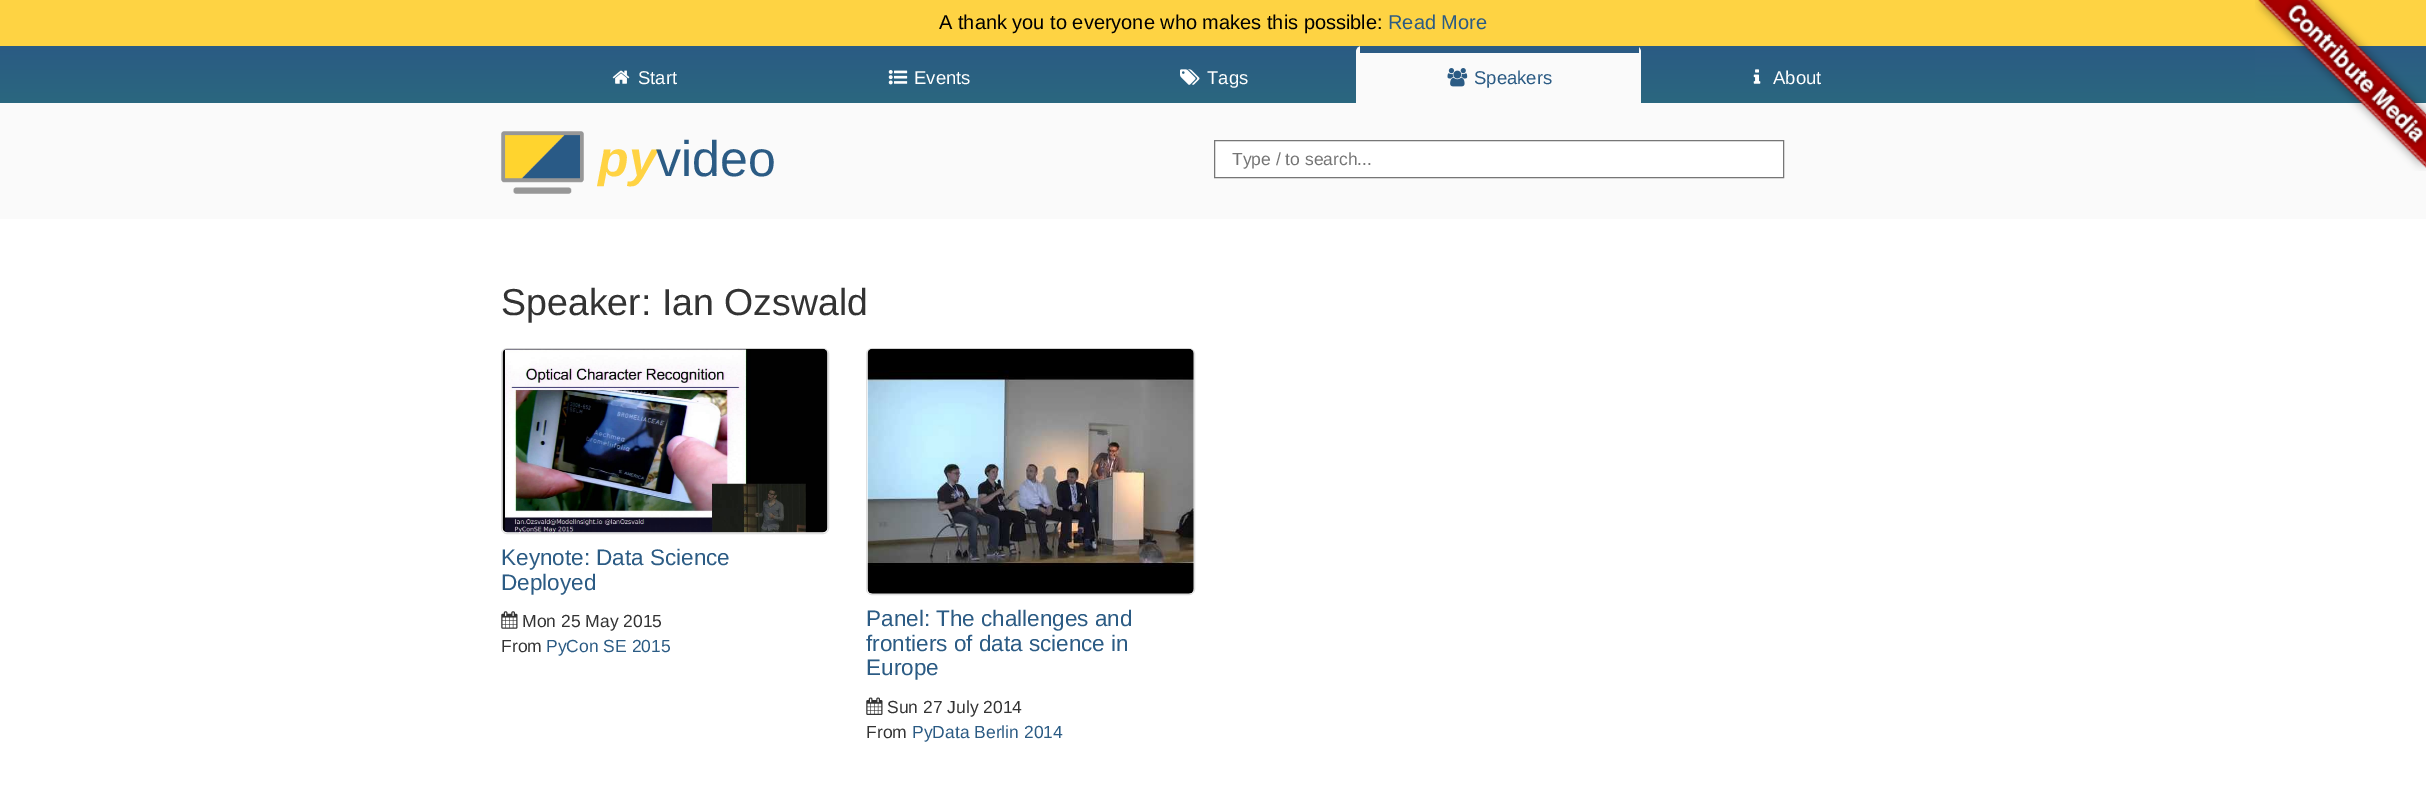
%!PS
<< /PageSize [2426 812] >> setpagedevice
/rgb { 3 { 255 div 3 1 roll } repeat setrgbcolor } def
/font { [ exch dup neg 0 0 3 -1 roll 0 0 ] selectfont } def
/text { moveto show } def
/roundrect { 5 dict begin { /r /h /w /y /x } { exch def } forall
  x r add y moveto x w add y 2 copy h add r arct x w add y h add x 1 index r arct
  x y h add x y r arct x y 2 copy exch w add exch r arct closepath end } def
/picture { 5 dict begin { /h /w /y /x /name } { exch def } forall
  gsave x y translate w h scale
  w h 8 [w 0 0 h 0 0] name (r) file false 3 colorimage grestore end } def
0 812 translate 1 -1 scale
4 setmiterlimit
255 255 255 rgb
0 0 2426 812 rectfill
254 211 67 rgb
0 0 2426 46 rectfill
250 250 250 rgb
0 103 2426 116 rectfill
gsave 0 46 moveto 2426 0 rlineto 0 57 rlineto -2426 0 rlineto closepath clip newpath
<< /ShadingType 2 /ColorSpace /DeviceRGB /Coords [1213 46 1213 103] /Extend [true true] /Function << /FunctionType 2 /Domain [0 1] /C0 [0.169 0.357 0.518] /C1 [0.165 0.404 0.498] /N 1 >> >> shfill grestore
(img_01.rgb) 2255 0 171 171 picture
(img_02.rgb) 612 70 18 14 picture
(img_03.rgb) 888 70 20 15 picture
(img_04.rgb) 1180 69 20 16 picture
1362 46 moveto 273 0 rlineto 3.5 0 6 2.5 6 6 rcurveto 0 51 rlineto -285 0 rlineto 0 -51 rlineto 0 -3.5 2.5 -6 6 -6 rcurveto closepath fill
43 91 132 rgb
1360 46 279 7 rectfill
(img_05.rgb) 1447 68 21 19 picture
(img_06.rgb) 1753 69 8 15 picture
(img_07.rgb) 501 131 83 63 picture
255 255 255 rgb
1214.5 140.5 moveto 569 0 rlineto 0 37 rlineto -569 0 rlineto closepath gsave fill grestore
118 118 118 rgb
stroke
224 224 224 rgb
501.5 348.5 327 185 5.5 roundrect stroke
(img_08.rgb) 502 348 326 185 picture
(img_09.rgb) 501 611 17 18 picture
866.5 348.5 328 246 5.5 roundrect stroke
(img_10.rgb) 867 348 327 246 picture
(img_11.rgb) 866 697 17 18 picture
/LiberationSans-Regular 20 font
0 0 0 rgb
(A thank you to everyone who makes this possible:) 939 29 text
43 91 132 rgb
(Read More) 1388 29 text
/LiberationSans-Regular 18.5 font
255 255 255 rgb
(Start) 638 84 text
(Events) 914 84 text
(Tags) 1207 84 text
43 91 132 rgb
(Speakers) 1474 84 text
255 255 255 rgb
(About) 1773 84 text
/LiberationSans-BoldItalic 50 font
255 211 67 rgb
(py) 598 176 text
/LiberationSans-Regular 50 font
43 91 132 rgb
(video) 656 176 text
/LiberationSans-Regular 17.5 font
117 117 117 rgb
(Type / to search...) 1232 165 text
/LiberationSans-Regular 37.5 font
51 51 51 rgb
(Speaker: Ian Ozswald) 501 315 text
/LiberationSans-Regular 22.5 font
43 91 132 rgb
(Keynote: Data Science) 501 565 text
(Deployed) 501 590 text
/LiberationSans-Regular 17.5 font
51 51 51 rgb
(Mon 25 May 2015) 522 627 text
(From) 501 652 text
43 91 132 rgb
(PyCon SE 2015) 546 652 text
/LiberationSans-Regular 22.5 font
(Panel: The challenges and) 866 626 text
(frontiers of data science in) 866 651 text
(Europe) 866 675 text
/LiberationSans-Regular 17.5 font
51 51 51 rgb
(Sun 27 July 2014) 887 713 text
(From) 866 738 text
43 91 132 rgb
(PyData Berlin 2014) 912 738 text
showpage
